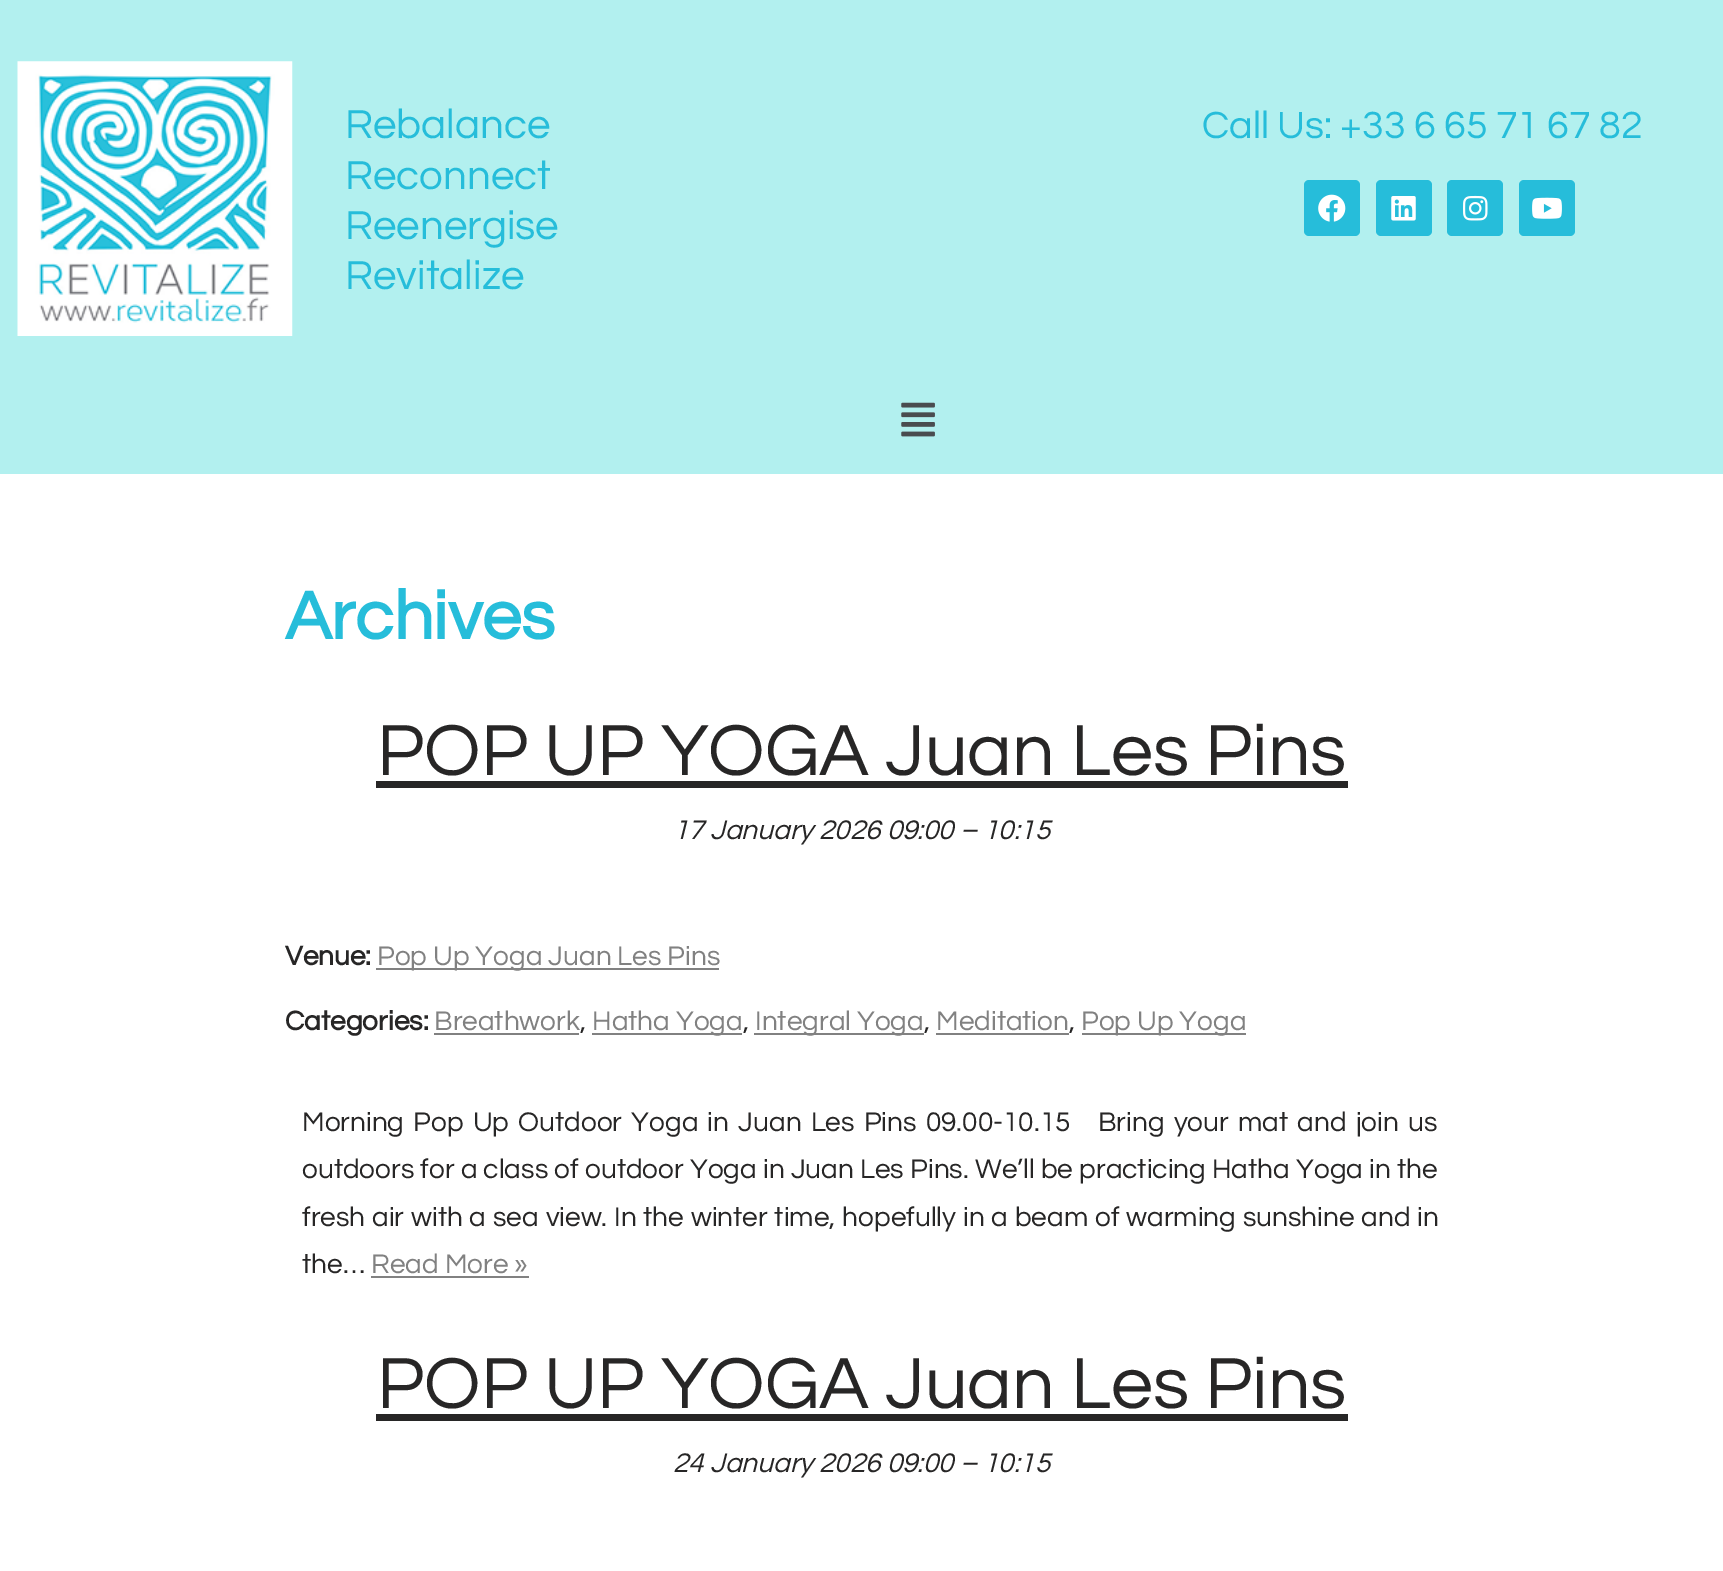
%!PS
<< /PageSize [1723 1571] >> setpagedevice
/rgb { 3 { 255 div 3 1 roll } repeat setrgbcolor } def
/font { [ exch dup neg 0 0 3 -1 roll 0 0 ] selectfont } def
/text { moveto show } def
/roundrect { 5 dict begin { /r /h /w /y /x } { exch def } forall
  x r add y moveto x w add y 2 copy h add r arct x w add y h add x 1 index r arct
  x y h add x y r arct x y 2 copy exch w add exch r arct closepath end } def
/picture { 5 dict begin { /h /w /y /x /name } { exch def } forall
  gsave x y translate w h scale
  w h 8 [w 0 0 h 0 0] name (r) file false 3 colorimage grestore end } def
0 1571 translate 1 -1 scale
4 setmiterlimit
255 255 255 rgb
0 0 1723 1571 rectfill
178 240 239 rgb
0 0 1723 474 rectfill
(img_01.rgb) 17 61 276 275 picture
38 189 218 rgb
1304 180 56 56 5 roundrect fill
(img_02.rgb) 1318 194 28 28 picture
1376 180 56 56 5 roundrect fill
(img_03.rgb) 1391 196 25 25 picture
1447 180 56 56 5 roundrect fill
(img_04.rgb) 1463 195 25 26 picture
1519 180 56 56 5 roundrect fill
(img_05.rgb) 1532 197 30 22 picture
(img_06.rgb) 901 402 34 35 picture
39 38 38 rgb
376 781 972 7 rectfill
129 129 129 rgb
376 968 343 2 rectfill
434 1033 145 2 rectfill
592 1033 150 2 rectfill
754 1033 170 2 rectfill
936 1033 133 2 rectfill
1082 1033 164 2 rectfill
371 1276 158 2 rectfill
39 38 38 rgb
376 1414 972 7 rectfill
/Questrial-Regular 42 font
38 189 218 rgb
(Rebalance) 345 138 text
(Reconnect) 345 189 text
(Reenergise) 345 239 text
(Revitalize) 345 289 text
/Questrial-Regular 39.4 font
(Call Us: +33 6 65 71 67 82) 1202 138 text
/Questrial-Bold 70 font
(Archives) 285 639 text
/Questrial-Regular 75.25 font
39 38 38 rgb
(POP UP YOGA Juan Les Pins) 377 775 text
/Questrial-Italic 28 font
(17 January 2026 09:00 – 10:15) 673 839 text
/Questrial-Bold 28 font
(Venue:) 285 965 text
/Questrial-Regular 28 font
129 129 129 rgb
(Pop Up Yoga Juan Les Pins) 377 965 text
/Questrial-Bold 28 font
39 38 38 rgb
(Categories:) 285 1030 text
/Questrial-Regular 28 font
129 129 129 rgb
(Breathwork) 434 1030 text
39 38 38 rgb
(,) 580 1030 text
129 129 129 rgb
(Hatha Yoga) 592 1030 text
39 38 38 rgb
(,) 743 1030 text
129 129 129 rgb
(Integral Yoga) 755 1030 text
39 38 38 rgb
(,) 924 1030 text
129 129 129 rgb
(Meditation) 936 1030 text
39 38 38 rgb
(,) 1069 1030 text
129 129 129 rgb
(Pop Up Yoga) 1081 1030 text
39 38 38 rgb
302 1131 moveto 3.25 0 32 (Morning Pop Up Outdoor Yoga in Juan Les Pins 09.00-10.15   Bring your mat and join us) widthshow
302 1178 moveto 0.25 0 32 (outdoors for a class of outdoor Yoga in Juan Les Pins. We’ll be practicing Hatha Yoga in the) widthshow
302 1226 moveto 0.9 0 32 (fresh air with a sea view. In the winter time, hopefully in a beam of warming sunshine and in) widthshow
(the…) 302 1273 text
129 129 129 rgb
(Read More ») 371 1273 text
/Questrial-Regular 75.25 font
39 38 38 rgb
(POP UP YOGA Juan Les Pins) 377 1408 text
/Questrial-Italic 28 font
(24 January 2026 09:00 – 10:15) 673 1472 text
showpage
